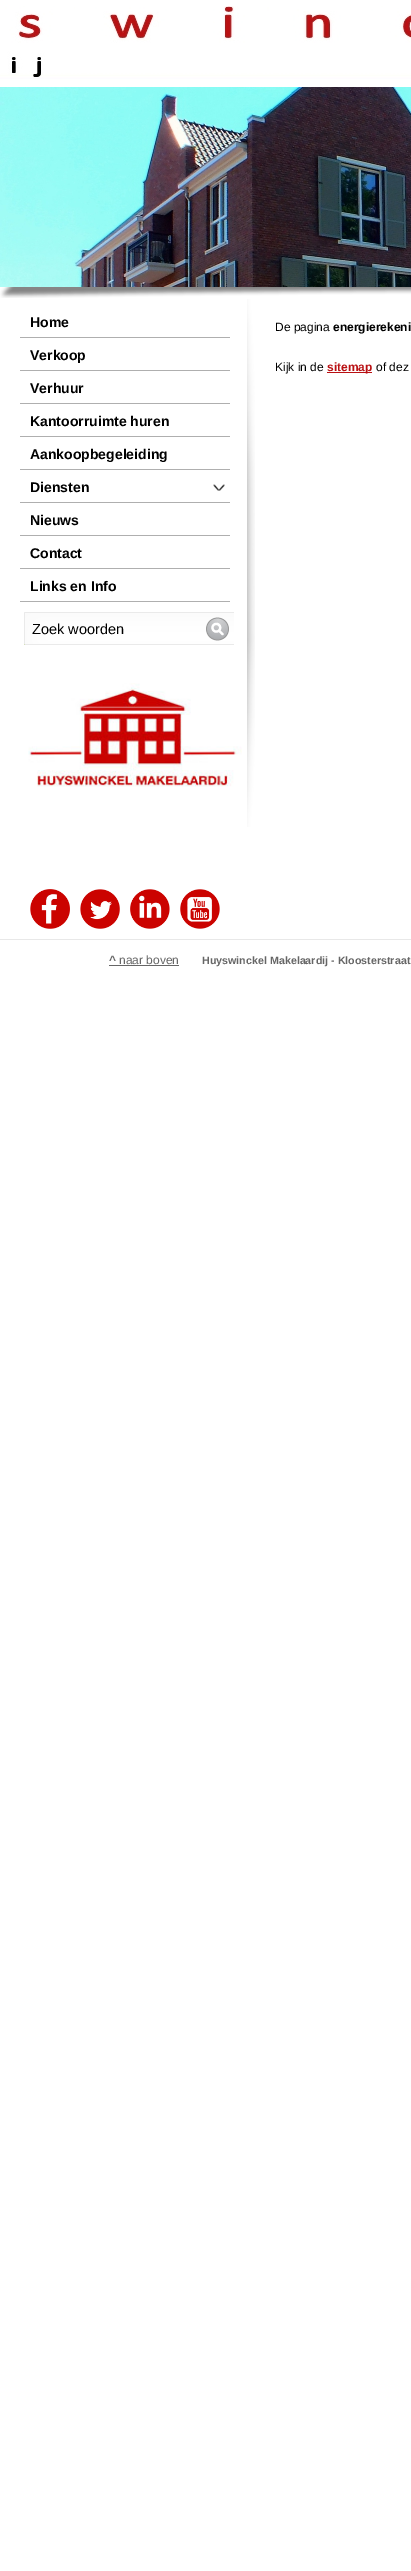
%!PS
<< /PageSize [411 2571] >> setpagedevice
/rgb { 3 { 255 div 3 1 roll } repeat setrgbcolor } def
/font { [ exch dup neg 0 0 3 -1 roll 0 0 ] selectfont } def
/text { moveto show } def
/picture { 5 dict begin { /h /w /y /x /name } { exch def } forall
  gsave x y translate w h scale
  w h 8 [w 0 0 h 0 0] name (r) file false 3 colorimage grestore end } def
0 2571 translate 1 -1 scale
4 setmiterlimit
255 255 255 rgb
0 0 411 2571 rectfill
(img_01.rgb) 0 6 411 73 picture
(img_02.rgb) 0 87 411 200 picture
(img_03.rgb) 0 287 411 11 picture
(img_04.rgb) 247 299 8 528 picture
175 175 175 rgb
20 337 210 1 rectfill
20 370 210 1 rectfill
20 403 210 1 rectfill
20 436 210 1 rectfill
20 469 210 1 rectfill
(img_05.rgb) 213 484 12 7 picture
20 502 210 1 rectfill
20 535 210 1 rectfill
20 568 210 1 rectfill
20 601 210 1 rectfill
(img_06.rgb) 24 612 210 33 picture
(img_07.rgb) 206 617 23 24 picture
(img_08.rgb) 28 683 214 104 picture
(img_09.rgb) 30 889 40 40 picture
(img_10.rgb) 80 889 40 40 picture
(img_11.rgb) 130 889 40 40 picture
(img_12.rgb) 180 889 40 40 picture
185 16 19 rgb
327 372 45 1 rectfill
232 232 232 rgb
0 939 411 1 rectfill
102 102 102 rgb
109 965 70 1 rectfill
/LiberationSans-Bold 14 font
0 0 0 rgb
(Home) 30 327 text
(Verkoop) 30 360 text
(Verhuur) 30 393 text
(Kantoorruimte huren) 30 426 text
(Aankoopbegeleiding) 30 459 text
(Diensten) 30 492 text
(Nieuws) 30 525 text
(Contact) 30 558 text
(Links en Info) 30 591 text
/LiberationSans-Regular 14.5 font
(Zoek woorden) 32 634 text
/LiberationSans-Regular 12 font
(De pagina) 275 331 text
/LiberationSans-Bold 12 font
(energierekeni) 333 331 text
/LiberationSans-Regular 12 font
(Kijk in de) 275 371 text
/LiberationSans-Bold 12 font
185 16 19 rgb
(sitemap) 327 371 text
/LiberationSans-Regular 12 font
0 0 0 rgb
(of dez) 376 371 text
/LiberationSans-Bold 12 font
102 102 102 rgb
(^) 109 964 text
/LiberationSans-Regular 12 font
(naar boven) 119 964 text
/LiberationSans-Bold 10.7 font
(Huyswinckel Makelaardij - Kloosterstraat) 202 964 text
showpage
